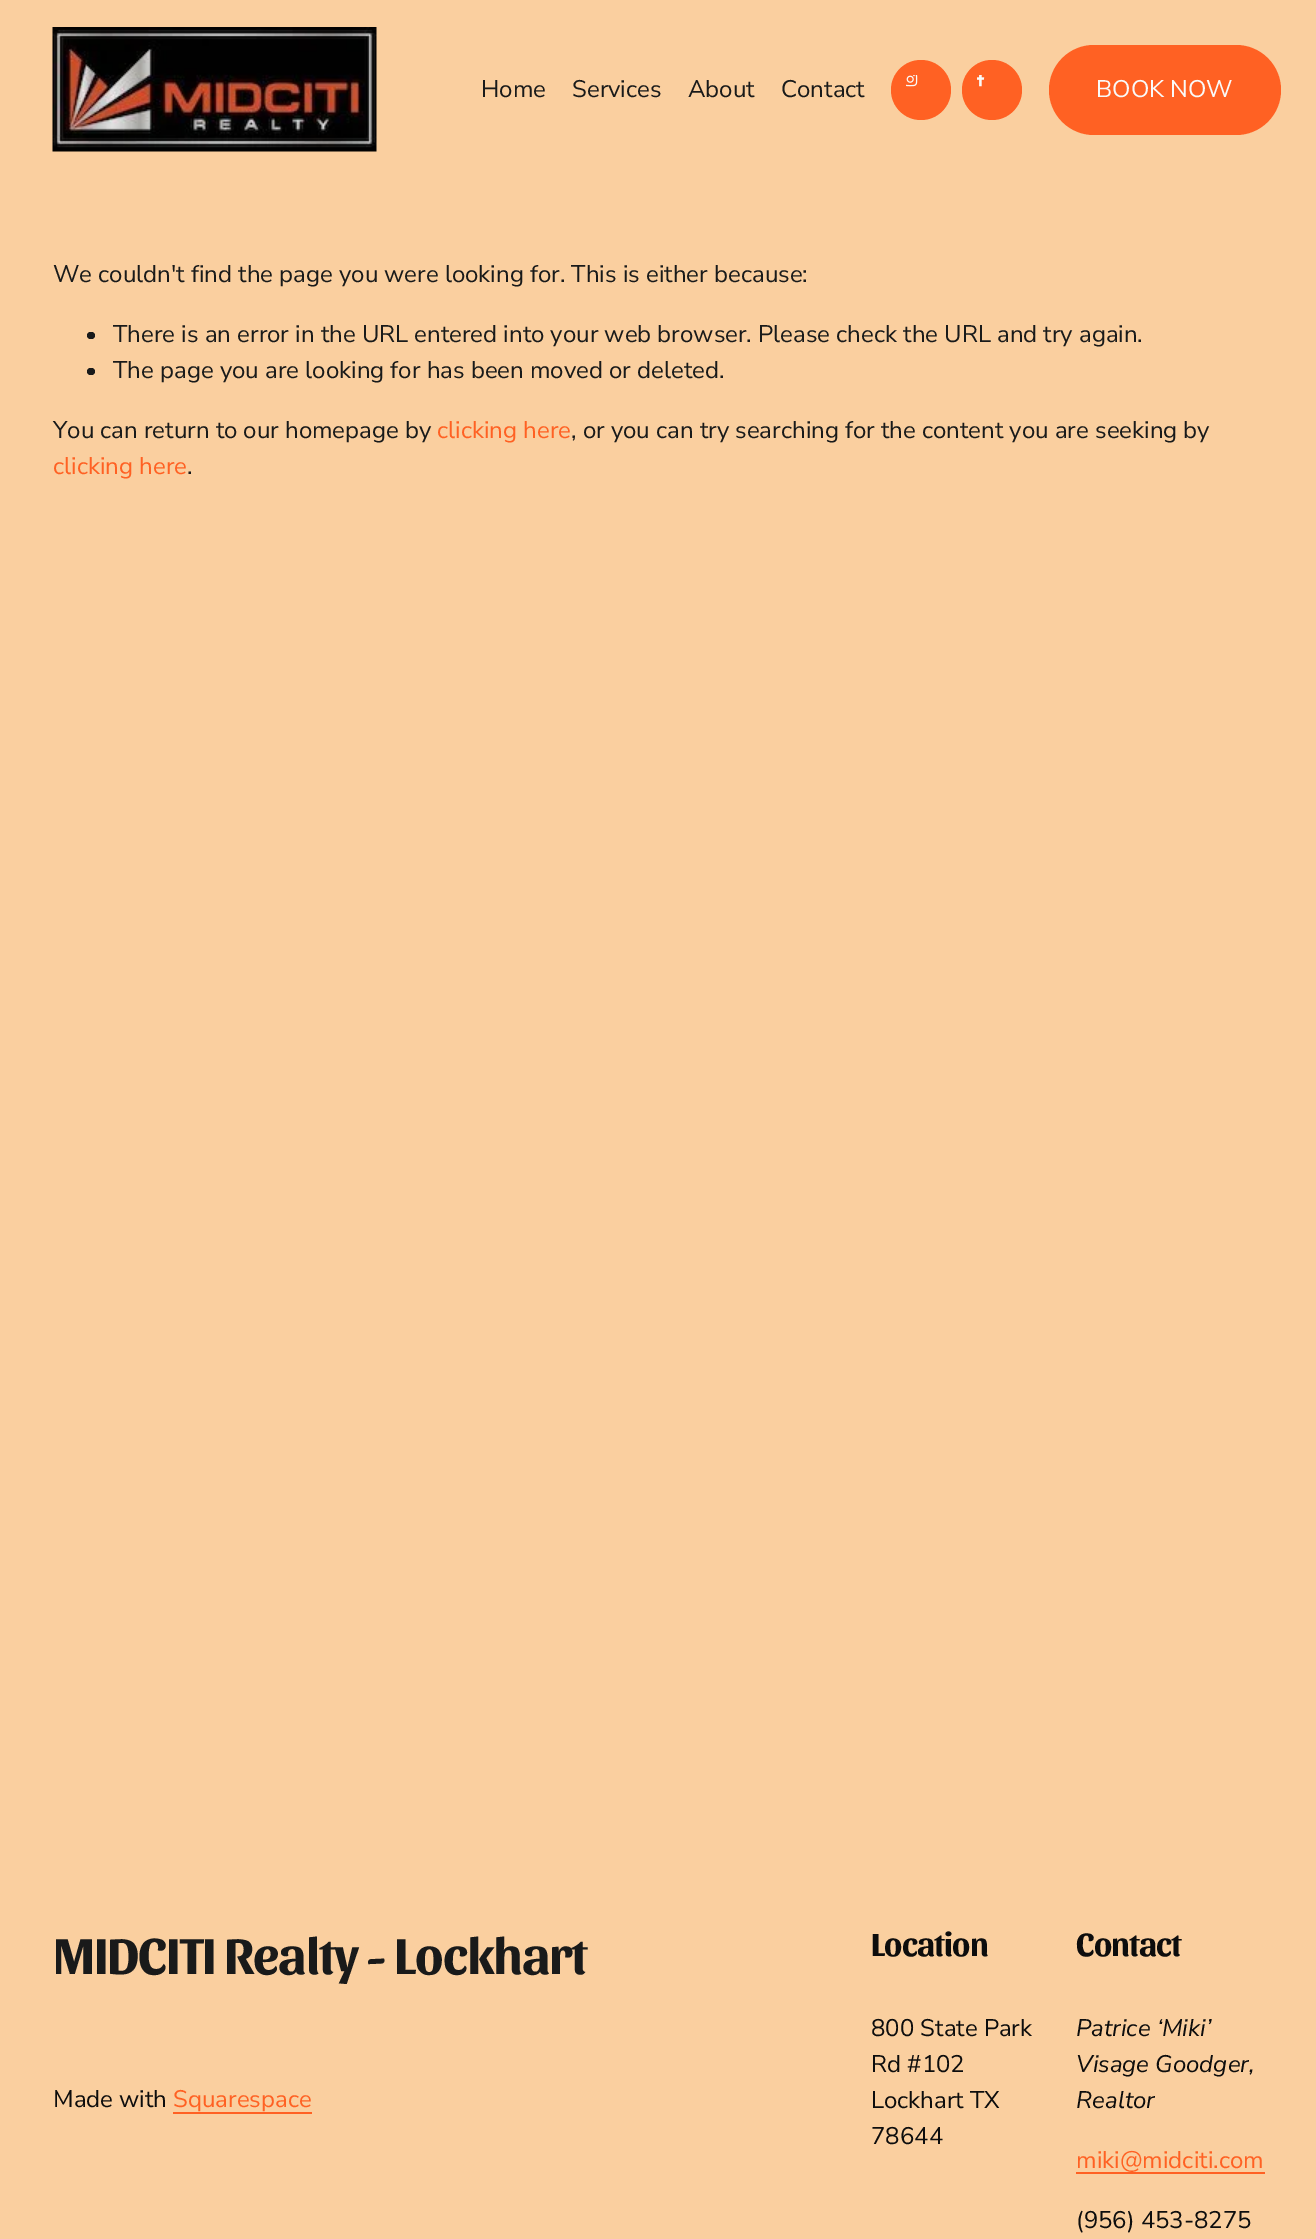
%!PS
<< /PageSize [1316 2239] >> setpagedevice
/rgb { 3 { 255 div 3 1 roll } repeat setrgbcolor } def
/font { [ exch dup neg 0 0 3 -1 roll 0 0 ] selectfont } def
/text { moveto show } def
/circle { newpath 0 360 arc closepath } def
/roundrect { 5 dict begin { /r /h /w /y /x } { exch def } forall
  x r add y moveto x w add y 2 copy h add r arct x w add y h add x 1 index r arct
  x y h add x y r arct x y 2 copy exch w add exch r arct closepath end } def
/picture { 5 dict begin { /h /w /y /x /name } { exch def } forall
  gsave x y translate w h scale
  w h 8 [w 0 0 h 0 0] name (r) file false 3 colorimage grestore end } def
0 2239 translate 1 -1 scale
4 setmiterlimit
250 207 159 rgb
0 0 1316 2239 rectfill
(img_01.rgb) 52 27 325 125 picture
255 97 35 rgb
921 90 30 circle fill
(img_02.rgb) 906 75 12 12 picture
992 90 30 circle fill
(img_03.rgb) 977 75 8 12 picture
1049 45 232 90 45 roundrect fill
25 26 26 rgb
87 332 8 7 3.5 roundrect fill
87 368 8 7 3.5 roundrect fill
255 97 35 rgb
1076 2172 189 2 rectfill
173 2112 139 2 rectfill
/NunitoSans-Regular 24 font
25 26 26 rgb
(Home) 481 97 text
(Services) 572 97 text
(About) 688 97 text
(Contact) 781 97 text
250 250 249 rgb
(BOOK NOW) 1096 97 text
25 26 26 rgb
(We couldn't find the page you were looking for. This is either because:) 53 282 text
(There is an error in the URL entered into your web browser. Please check the URL and try again.) 113 342 text
(The page you are looking for has been moved or deleted.) 113 378 text
(You can return to our homepage by) 53 438 text
255 97 35 rgb
(clicking here) 437 438 text
25 26 26 rgb
(, or you can try searching for the content you are seeking by) 571 438 text
255 97 35 rgb
(clicking here) 53 474 text
25 26 26 rgb
(.) 187 474 text
/Sansita-Bold 52.5 font
53 1974 moveto -1.05 0 (MIDCITI Realty - Lockhart) ashow
/Sansita-Bold 33.5 font
13 13 13 rgb
871 1956 moveto -0.75 0 (Location) ashow
/NunitoSans-Regular 24 font
(800 State Park) 871 2036 text
(Rd #102) 871 2072 text
(Lockhart TX) 871 2108 text
(78644) 871 2144 text
/Sansita-Bold 33.5 font
1076 1956 moveto -0.75 0 (Contact) ashow
/NunitoSans-Italic 24 font
(Patrice ‘Miki’) 1076 2036 text
(Visage Goodger,) 1076 2072 text
(Realtor) 1076 2108 text
/NunitoSans-Regular 24 font
255 97 35 rgb
(miki@midciti.com) 1076 2168 text
13 13 13 rgb
(\(956\) 453-8275) 1076 2228 text
(Made with) 53 2107 text
255 97 35 rgb
(Squarespace) 173 2107 text
showpage
